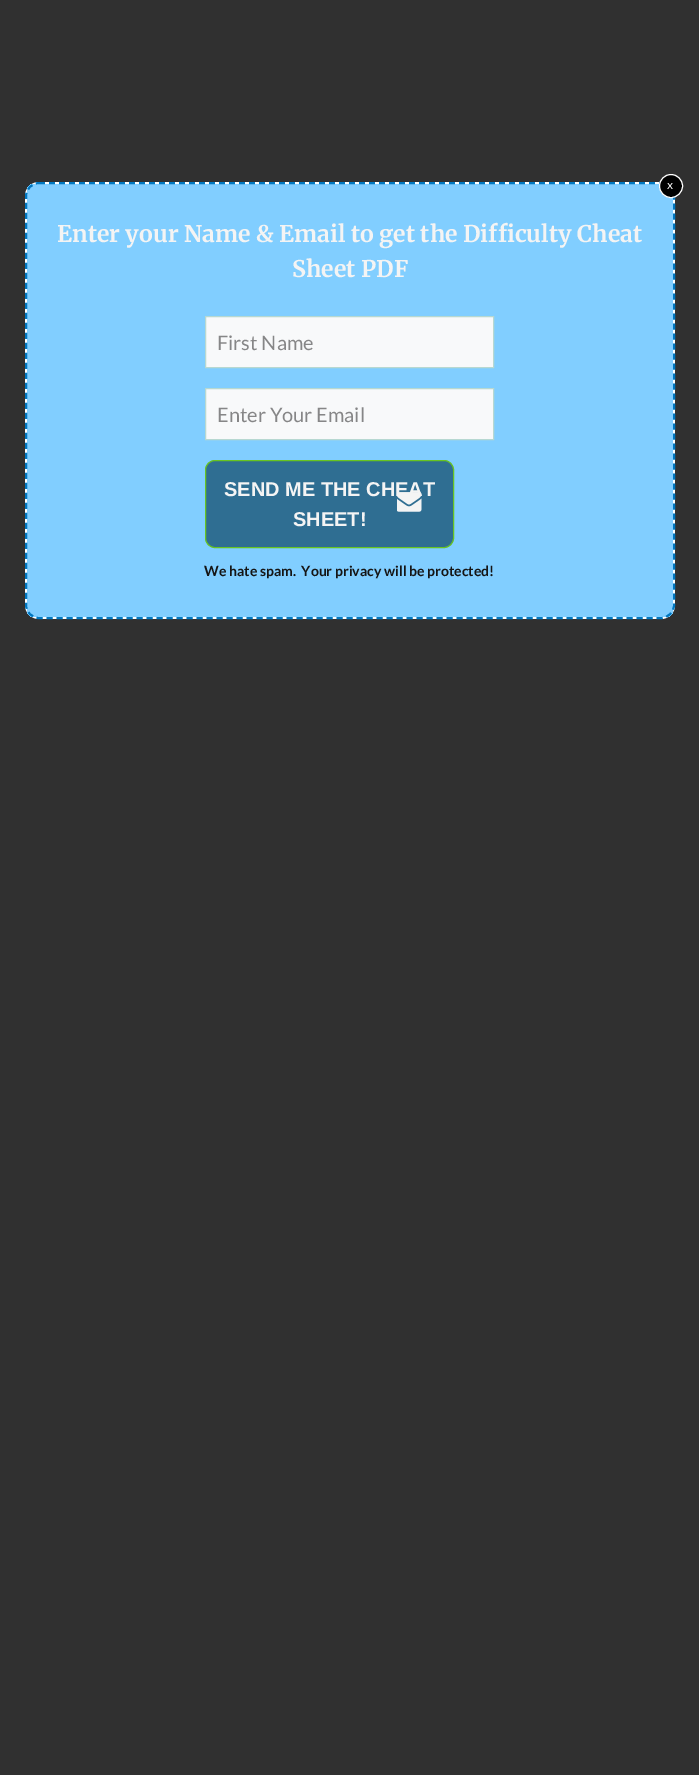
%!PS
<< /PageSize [699 1775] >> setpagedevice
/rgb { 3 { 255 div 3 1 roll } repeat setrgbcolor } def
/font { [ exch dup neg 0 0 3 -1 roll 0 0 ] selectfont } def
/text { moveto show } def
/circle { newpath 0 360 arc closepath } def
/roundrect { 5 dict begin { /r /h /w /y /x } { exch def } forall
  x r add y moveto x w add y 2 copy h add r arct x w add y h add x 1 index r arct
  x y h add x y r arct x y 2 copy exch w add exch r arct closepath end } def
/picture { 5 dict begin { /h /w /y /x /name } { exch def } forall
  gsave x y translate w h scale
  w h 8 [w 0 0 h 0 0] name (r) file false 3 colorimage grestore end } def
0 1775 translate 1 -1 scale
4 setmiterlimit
48 48 48 rgb
0 0 699 1775 rectfill
255 255 255 rgb
25 182 650 437 14 roundrect fill
gsave
25 182 650 437 14 roundrect clip newpath
129 206 255 rgb
27 184 646 433 rectfill
grestore
0 119 192 rgb
2 setlinewidth
[6 4] 0 setdash
39 183 moveto 622 0 rlineto 7 0 13 6 13 13 rcurveto 0 409 rlineto 0 7 -6 13 -13 13 rcurveto -622 0 rlineto -7 0 -13 -6 -13 -13 rcurveto 0 -409 rlineto 0 -7 6 -13 13 -13 rcurveto closepath stroke
0 0 0 rgb
671 186 11.5 circle gsave fill grestore
255 255 255 rgb
1 setlinewidth
[] 0 setdash
stroke
248 249 250 rgb
205.5 316.5 moveto 288 0 rlineto 0 51 rlineto -288 0 rlineto closepath gsave fill grestore
183 216 209 rgb
stroke
248 249 250 rgb
205.5 388.5 moveto 288 0 rlineto 0 51 rlineto -288 0 rlineto closepath gsave fill grestore
183 216 209 rgb
stroke
47 110 146 rgb
205.5 460.5 248 87 9.5 roundrect gsave fill grestore
104 196 33 rgb
stroke
/Lato-Regular 12 font
255 255 255 rgb
(x) 667 189 text
/Merriweather-Bold 23 font
244 244 244 rgb
(Enter your Name & Email to get the Difficulty Cheat) 57 242 text
(Sheet PDF) 292 277 text
/Lato-Regular 20 font
134 134 135 rgb
(First Name) 217 350 text
(Enter Your Email) 217 422 text
/LiberationSans-Bold 20 font
244 244 244 rgb
(SEND ME THE CHEAT) 224 496 text
(SHEET!) 293 526 text
(img_01.rgb) 397 492 25 20 picture
/Lato-Bold 14 font
21 21 21 rgb
(We hate spam.  Your privacy will be protected!) 204 576 text
showpage
